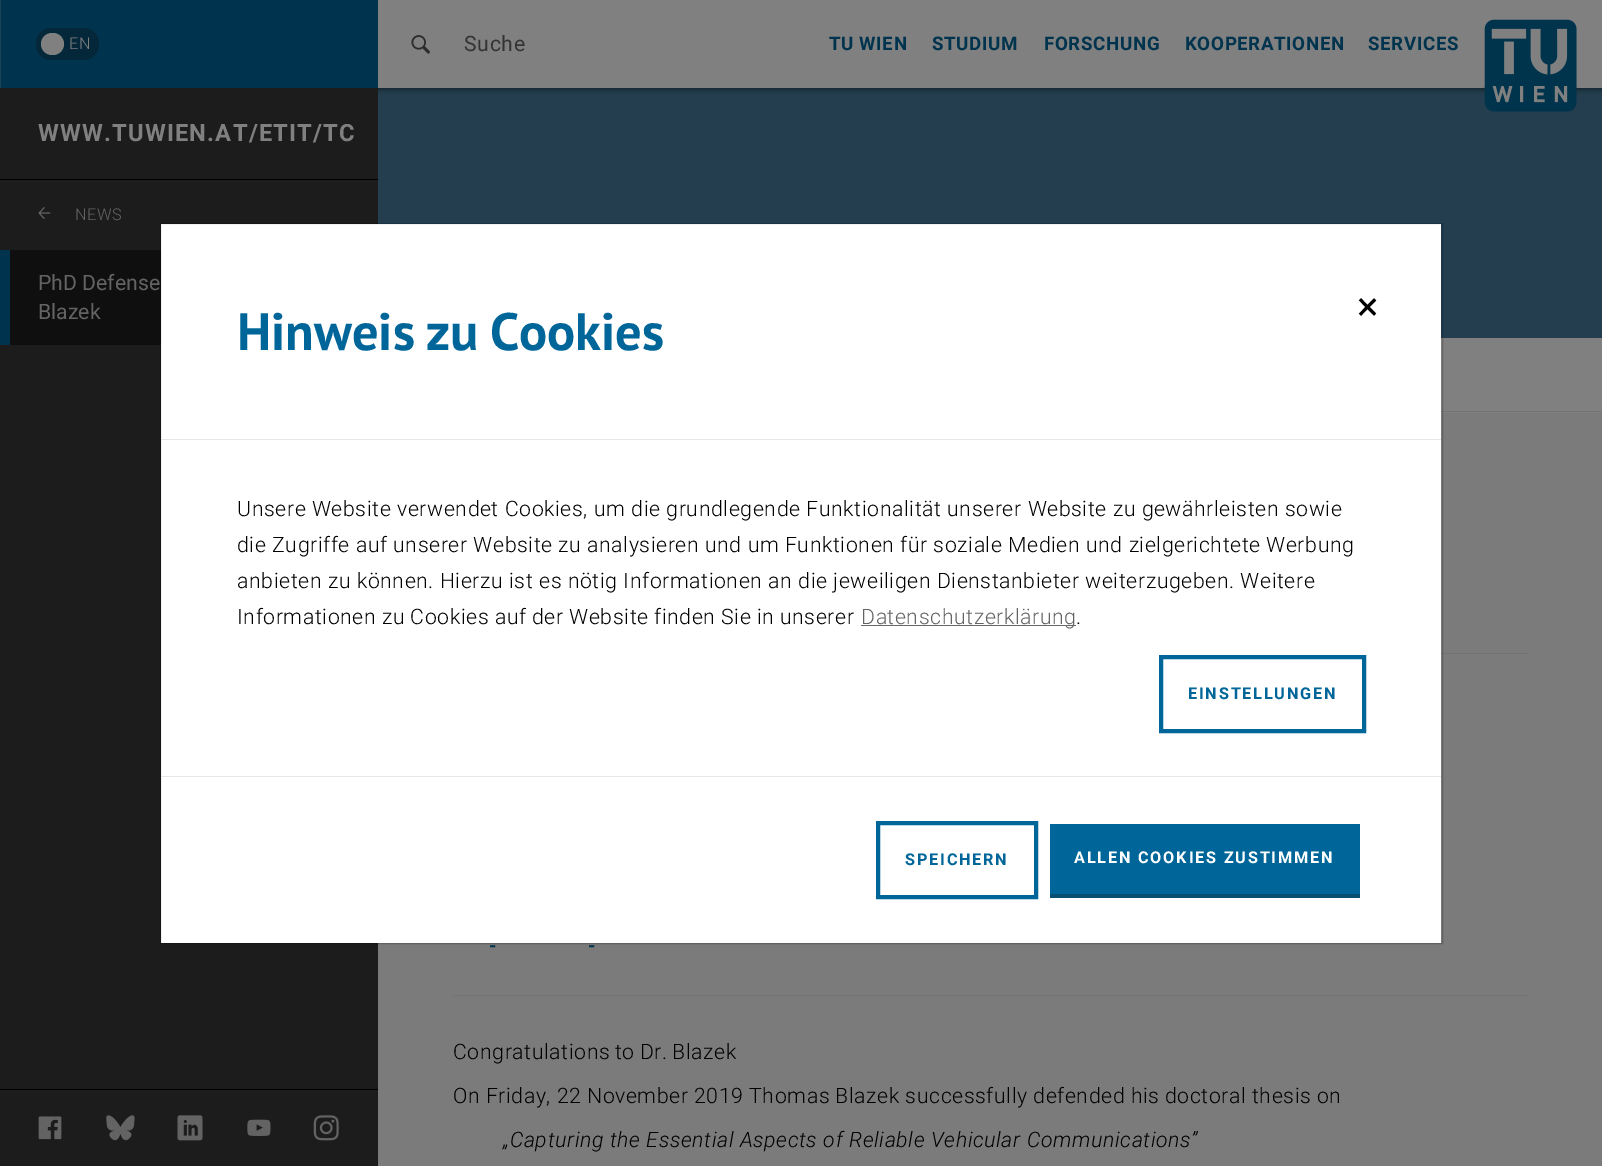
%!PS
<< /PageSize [1602 1166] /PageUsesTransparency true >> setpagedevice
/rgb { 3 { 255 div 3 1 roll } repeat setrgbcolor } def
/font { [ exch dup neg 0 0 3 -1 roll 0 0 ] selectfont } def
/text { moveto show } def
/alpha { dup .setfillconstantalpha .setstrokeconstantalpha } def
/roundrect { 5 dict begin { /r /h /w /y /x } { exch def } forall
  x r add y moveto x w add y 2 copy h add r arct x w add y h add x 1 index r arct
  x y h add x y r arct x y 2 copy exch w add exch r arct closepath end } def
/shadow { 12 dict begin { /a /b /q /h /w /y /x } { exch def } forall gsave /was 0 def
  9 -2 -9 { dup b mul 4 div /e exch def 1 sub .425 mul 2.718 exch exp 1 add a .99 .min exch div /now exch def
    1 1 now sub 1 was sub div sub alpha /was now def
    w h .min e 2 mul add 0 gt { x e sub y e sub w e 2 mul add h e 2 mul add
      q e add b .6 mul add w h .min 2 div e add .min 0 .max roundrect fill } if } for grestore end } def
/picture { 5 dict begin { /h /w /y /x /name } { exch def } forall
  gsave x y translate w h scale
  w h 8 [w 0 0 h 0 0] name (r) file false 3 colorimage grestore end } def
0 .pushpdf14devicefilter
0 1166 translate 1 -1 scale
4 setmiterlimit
123 123 123 rgb
0 0 1602 1166 rectfill
128 128 128 rgb
378 0 1224 88 rectfill
36 62 80 rgb
378 88 1224 250 rectfill
gsave
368 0 moveto 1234 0 rlineto 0 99 rlineto -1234 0 rlineto closepath 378 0 moveto 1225 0 rlineto 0 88 rlineto -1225 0 rlineto closepath eoclip newpath
0 0 0 rgb
378 1 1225 88 0 3 0.6 shadow
grestore
0 51 77 rgb
1 0 377 88 rectfill
25 66 87 rgb
0 0 1 88 rectfill
4 40 57 rgb
36 28 63 32 15 roundrect fill
128 128 128 rgb
41 33 23 22 11 roundrect fill
(img_01.rgb) 411 35 19 19 picture
(img_02.rgb) 1484 19 93 93 picture
28 28 28 rgb
0 88 378 1078 rectfill
255 255 255 rgb
161 224 1280 719 rectfill
128 128 128 rgb
1441 338 161 75 rectfill
115 115 115 rgb
1441 411 161 1 rectfill
1441 653 87 1 rectfill
15 15 15 rgb
10 250 151 95 rectfill
0.2 alpha
0 0 0 rgb
160.5 223.5 1282 720 rectstroke
1 alpha
230 230 230 rgb
161 439 1280 1 rectfill
103 103 103 rgb
861 625 215 1 rectfill
0 102 153 rgb
4 setlinewidth
1161 657 203 74 rectstroke
230 230 230 rgb
161 776 1280 1 rectfill
0 102 153 rgb
878 823 158 74 rectstroke
1050 824 310 70 rectfill
8 79 114 rgb
1050 894 310 4 rectfill
115 115 115 rgb
453 995 1075 1 rectfill
0 0 0 rgb
0 179 378 1 rectfill
(img_03.rgb) 38 207 13 12 picture
0 51 77 rgb
0 250 10 95 rectfill
0 0 0 rgb
0 1089 378 1 rectfill
(img_04.rgb) 38 1116 24 24 picture
(img_05.rgb) 106 1115 29 26 picture
(img_06.rgb) 177 1115 26 26 picture
(img_07.rgb) 247 1119 24 17 picture
(img_08.rgb) 313 1115 26 26 picture
/Roboto-Light 16.25 font
128 128 128 rgb
69 49 moveto 0.6 0 (EN) ashow
/Roboto-Regular 21.25 font
52 52 52 rgb
464 51 moveto 0.6 0 (Suche) ashow
/Roboto-Bold 18.75 font
0 51 77 rgb
829 50 moveto 0.6 0 (TU WIEN) ashow
932 50 moveto 0.6 0 (STUDIUM) ashow
1044 50 moveto 0.6 0 (FORSCHUNG) ashow
1185 50 moveto 0.6 0 (KOOPERATIONEN) ashow
1368 50 moveto 0.6 0 (SERVICES) ashow
/Roboto-Regular 40 font
0 0 0 rgb
(×) 1357 320 text
/PTSans-Bold 52.5 font
0 102 153 rgb
237 350 moveto -2 0 32 (Hinweis zu Cookies) widthshow
/Roboto-Light 21.25 font
0 0 0 rgb
237 516 moveto 0.6 0 (Unsere Website verwendet Cookies, um die grundlegende Funktionalität unserer Website zu gewährleisten sowie) ashow
237 552 moveto -0.1 0 32 0.6 0 (die Zugriffe auf unserer Website zu analysieren und um Funktionen für soziale Medien und zielgerichtete Werbung) awidthshow
237 588 moveto 0.6 0 (anbieten zu können. Hierzu ist es nötig Informationen an die jeweiligen Dienstanbieter weiterzugeben. Weitere) ashow
237 624 moveto -0.25 0 32 0.6 0 (Informationen zu Cookies auf der Website finden Sie in unserer) awidthshow
99 99 99 rgb
861 624 moveto 0.6 0 (Datenschutzerklärung) ashow
0 0 0 rgb
1076 624 moveto 0.6 0 (.) ashow
/Roboto-Bold 16.25 font
0 102 153 rgb
1188 699 moveto 1.8 0 (EINSTELLUNGEN) ashow
905 865 moveto 1.8 0 (SPEICHERN) ashow
255 255 255 rgb
1074 863 moveto 1.8 0 (ALLEN COOKIES ZUSTIMMEN) ashow
/Roboto-Bold 18.75 font
0 51 77 rgb
489 952 moveto 0.6 0 (-) ashow
588 952 moveto 0.6 0 (-) ashow
/Roboto-Light 21.25 font
0 0 0 rgb
453 1059 moveto -1 0 32 0.6 0 (Congratulations to Dr. Blazek) awidthshow
453 1103 moveto -0.25 0 32 0.6 0 (On Friday, 22 November 2019 Thomas Blazek successfully defended his doctoral thesis on) awidthshow
/Roboto-LightItalic 21.25 font
503 1147 moveto 0.6 0 („Capturing the Essential Aspects of Reliable Vehicular Communications”) ashow
/Roboto-Bold 23.75 font
128 128 128 rgb
38 141 moveto 1.2 0 (WWW.TUWIEN.AT/ETIT/TC) ashow
/Roboto-Light 16.25 font
99 99 99 rgb
75 220 moveto 0.6 0 (NEWS) ashow
/Roboto-Regular 21.25 font
(PhD Defense) 38 290 text
(Blazek) 38 319 text
.poppdf14devicefilter showpage
